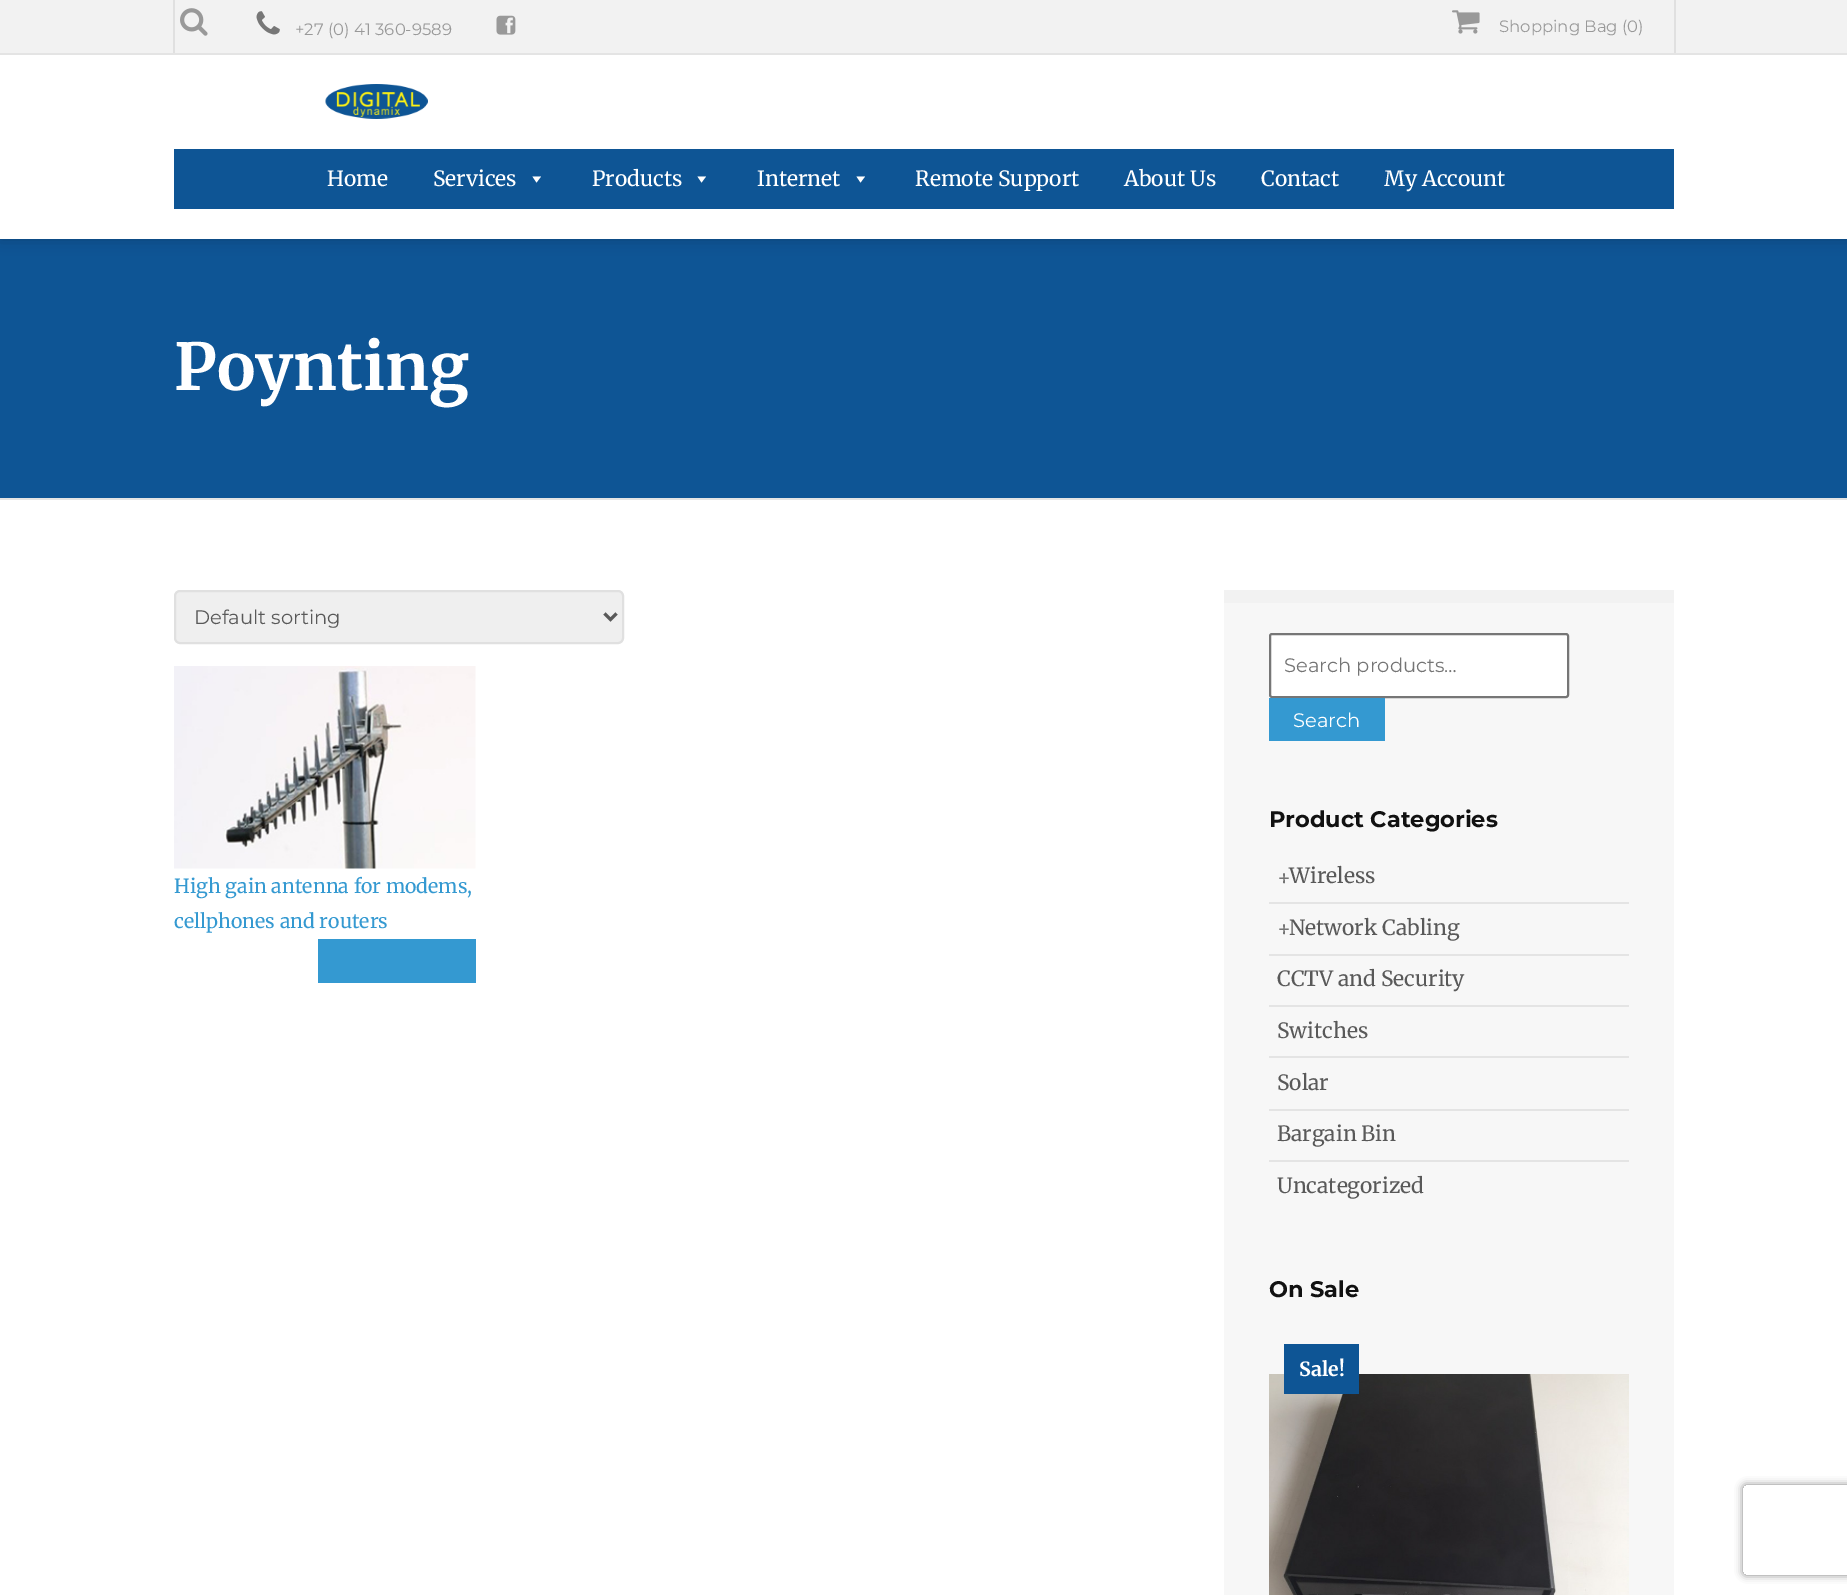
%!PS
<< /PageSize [1847 1595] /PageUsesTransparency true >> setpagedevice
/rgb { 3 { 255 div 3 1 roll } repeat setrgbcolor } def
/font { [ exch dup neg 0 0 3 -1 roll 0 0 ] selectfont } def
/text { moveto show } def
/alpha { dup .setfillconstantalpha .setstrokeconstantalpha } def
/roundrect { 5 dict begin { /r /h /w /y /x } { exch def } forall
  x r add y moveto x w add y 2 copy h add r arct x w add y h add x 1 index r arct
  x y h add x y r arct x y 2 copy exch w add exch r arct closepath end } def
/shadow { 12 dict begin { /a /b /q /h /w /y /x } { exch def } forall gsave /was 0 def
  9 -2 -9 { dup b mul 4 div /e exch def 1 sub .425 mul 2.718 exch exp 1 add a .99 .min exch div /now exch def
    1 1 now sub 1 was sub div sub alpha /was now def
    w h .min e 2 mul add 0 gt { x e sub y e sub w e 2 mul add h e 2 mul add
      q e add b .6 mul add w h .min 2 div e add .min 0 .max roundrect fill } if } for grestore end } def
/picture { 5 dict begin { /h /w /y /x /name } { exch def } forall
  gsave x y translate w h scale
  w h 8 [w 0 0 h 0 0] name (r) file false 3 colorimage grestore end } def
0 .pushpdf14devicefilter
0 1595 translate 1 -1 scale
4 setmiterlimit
255 255 255 rgb
0 0 1847 1595 rectfill
14 85 149 rgb
0 239 1847 259 rectfill
0 0 0 rgb
0 0 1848 239 0 7.5 0.2 shadow
255 255 255 rgb
0 55 1847 184 rectfill
242 242 242 rgb
0 0 1847 53 rectfill
228 228 228 rgb
0 53 1847 2 rectfill
224 224 224 rgb
1674 0 2 53 rectfill
173 0 2 53 rectfill
(img_01.rgb) 180 8 28 28 picture
(img_02.rgb) 256 11 24 24 picture
(img_03.rgb) 496 15 20 20 picture
(img_04.rgb) 1452 10 28 24 picture
(img_05.rgb) 325 84 103 35 picture
14 85 149 rgb
174 149 1500 60 rectfill
255 255 255 rgb
541 176.5 moveto -4.5 6 rlineto -4 -6 rlineto closepath fill
706 176.5 moveto -4.5 6 rlineto -4 -6 rlineto closepath fill
865 176.5 moveto -4.5 6 rlineto -4 -6 rlineto closepath fill
228 228 228 rgb
0 498 1847 2 rectfill
239 239 239 rgb
175 591 448 52 5 roundrect gsave fill grestore
224 224 224 rgb
2 setlinewidth
stroke
89 89 89 rgb
3 setlinewidth
604.5 613.5 moveto 6 6 rlineto 6 -6 rlineto stroke
(img_06.rgb) 174 666 302 203 picture
52 153 209 rgb
318 939 158 44 rectfill
247 247 247 rgb
1224 603 450 992 rectfill
242 242 242 rgb
1224 590 450 13 rectfill
255 255 255 rgb
1270 634 298 63 2 roundrect gsave fill grestore
118 118 118 rgb
2 setlinewidth
stroke
52 153 209 rgb
1269 698 116 43 rectfill
228 228 228 rgb
1269 902 360 2 rectfill
1269 954 360 2 rectfill
1269 1005 360 2 rectfill
1269 1056 360 2 rectfill
1269 1109 360 2 rectfill
1269 1160 360 2 rectfill
(img_07.rgb) 1269 1374 360 221 picture
14 85 149 rgb
1284 1344 75 50 rectfill
gsave
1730 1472 moveto 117 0 rlineto 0 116 rlineto -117 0 rlineto closepath 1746 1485 moveto 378 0 rlineto 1.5 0 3 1.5 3 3 rcurveto 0 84 rlineto 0 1.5 -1.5 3 -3 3 rcurveto -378 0 rlineto -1.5 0 -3 -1.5 -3 -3 rcurveto 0 -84 rlineto 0 -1.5 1.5 -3 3 -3 rcurveto closepath eoclip newpath
128 128 128 rgb
1743 1485 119 90 3 4 1 shadow
grestore
/Montserrat-Regular 16.5 font
153 153 153 rgb
(+27 \(0\) 41 360-9589) 295 35 text
(Shopping Bag \(0\)) 1499 32 text
/Merriweather-Regular 21 font
255 255 255 rgb
(Home) 327 186 text
(Services) 433 186 text
(Products) 592 186 text
(Internet) 757 186 text
(Remote Support) 915 186 text
(About Us) 1124 186 text
(Contact) 1261 186 text
(My Account) 1384 186 text
/Merriweather-Bold 64.5 font
(Poynting) 174 390 text
/Montserrat-Regular 19.5 font
89 89 89 rgb
(Default sorting) 194 624 text
/Merriweather-Regular 19.5 font
52 153 209 rgb
(High gain antenna for modems,) 174 893 text
(cellphones and routers) 174 928 text
/Montserrat-Regular 19.5 font
117 117 117 rgb
(Search products…) 1284 672 text
255 255 255 rgb
(Search) 1293 727 text
/Montserrat-Bold 22.5 font
17 17 17 rgb
(Product Categories) 1269 827 text
/Merriweather-Regular 21 font
117 117 117 rgb
(+) 1277 885 text
89 89 89 rgb
(Wireless) 1289 883 text
117 117 117 rgb
(+) 1277 936 text
89 89 89 rgb
(Network Cabling) 1289 935 text
(CCTV and Security) 1277 986 text
(Switches) 1277 1038 text
(Solar) 1277 1090 text
(Bargain Bin) 1277 1141 text
(Uncategorized) 1277 1193 text
/Montserrat-Bold 22.5 font
17 17 17 rgb
(On Sale) 1269 1297 text
/Merriweather-Bold 19.5 font
255 255 255 rgb
(Sale!) 1299 1376 text
.poppdf14devicefilter showpage
